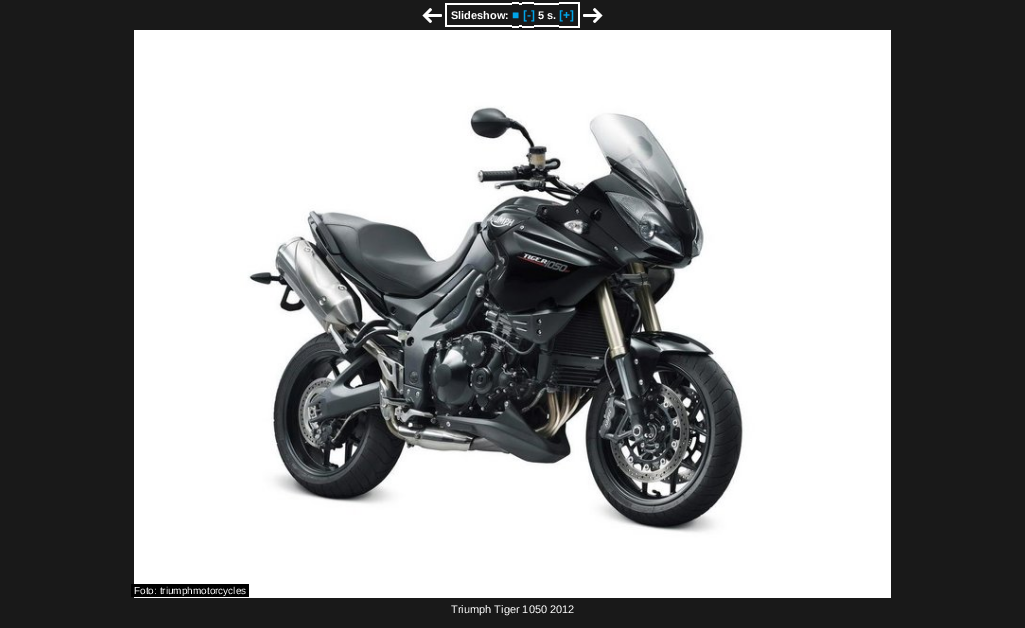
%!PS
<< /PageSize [1025 628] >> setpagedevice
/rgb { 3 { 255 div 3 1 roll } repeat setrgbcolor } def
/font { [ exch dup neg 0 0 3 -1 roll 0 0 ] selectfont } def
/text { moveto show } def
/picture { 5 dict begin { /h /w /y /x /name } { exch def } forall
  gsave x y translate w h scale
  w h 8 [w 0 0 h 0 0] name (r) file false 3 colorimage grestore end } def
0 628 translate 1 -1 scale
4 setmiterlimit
25 25 25 rgb
0 0 1025 628 rectfill
(img_01.rgb) 422 8 20 15 picture
255 255 255 rgb
445 3 67 2 rectfill
445 25 67 2 rectfill
445 3 2 24 rectfill
512 2 7 2 rectfill
512 26 7 2 rectfill
519 3 3 2 rectfill
519 25 3 2 rectfill
522 2 12 2 rectfill
522 26 12 2 rectfill
534 25 25 2 rectfill
534 3 25 2 rectfill
559 2 21 2 rectfill
578 2 2 26 rectfill
559 26 21 2 rectfill
(img_02.rgb) 583 8 20 15 picture
(img_03.rgb) 134 30 757 568 picture
0 0 0 rgb
131 584 118 13 rectfill
/LiberationSans-Bold 11 font
255 255 255 rgb
(Slideshow:) 451 19 text
/LiberationSans-Bold 12 font
0 164 232 rgb
(■ [-]) 512 19 text
/LiberationSans-Bold 11 font
255 255 255 rgb
(5 s.) 538 19 text
/LiberationSans-Bold 12 font
0 164 232 rgb
([+]) 559 19 text
/LiberationSans-Regular 10 font
255 255 255 rgb
(Foto: triumphmotorcycles) 134 594 text
/LiberationSans-Regular 11 font
(Triumph Tiger 1050 2012) 451 613 text
showpage
